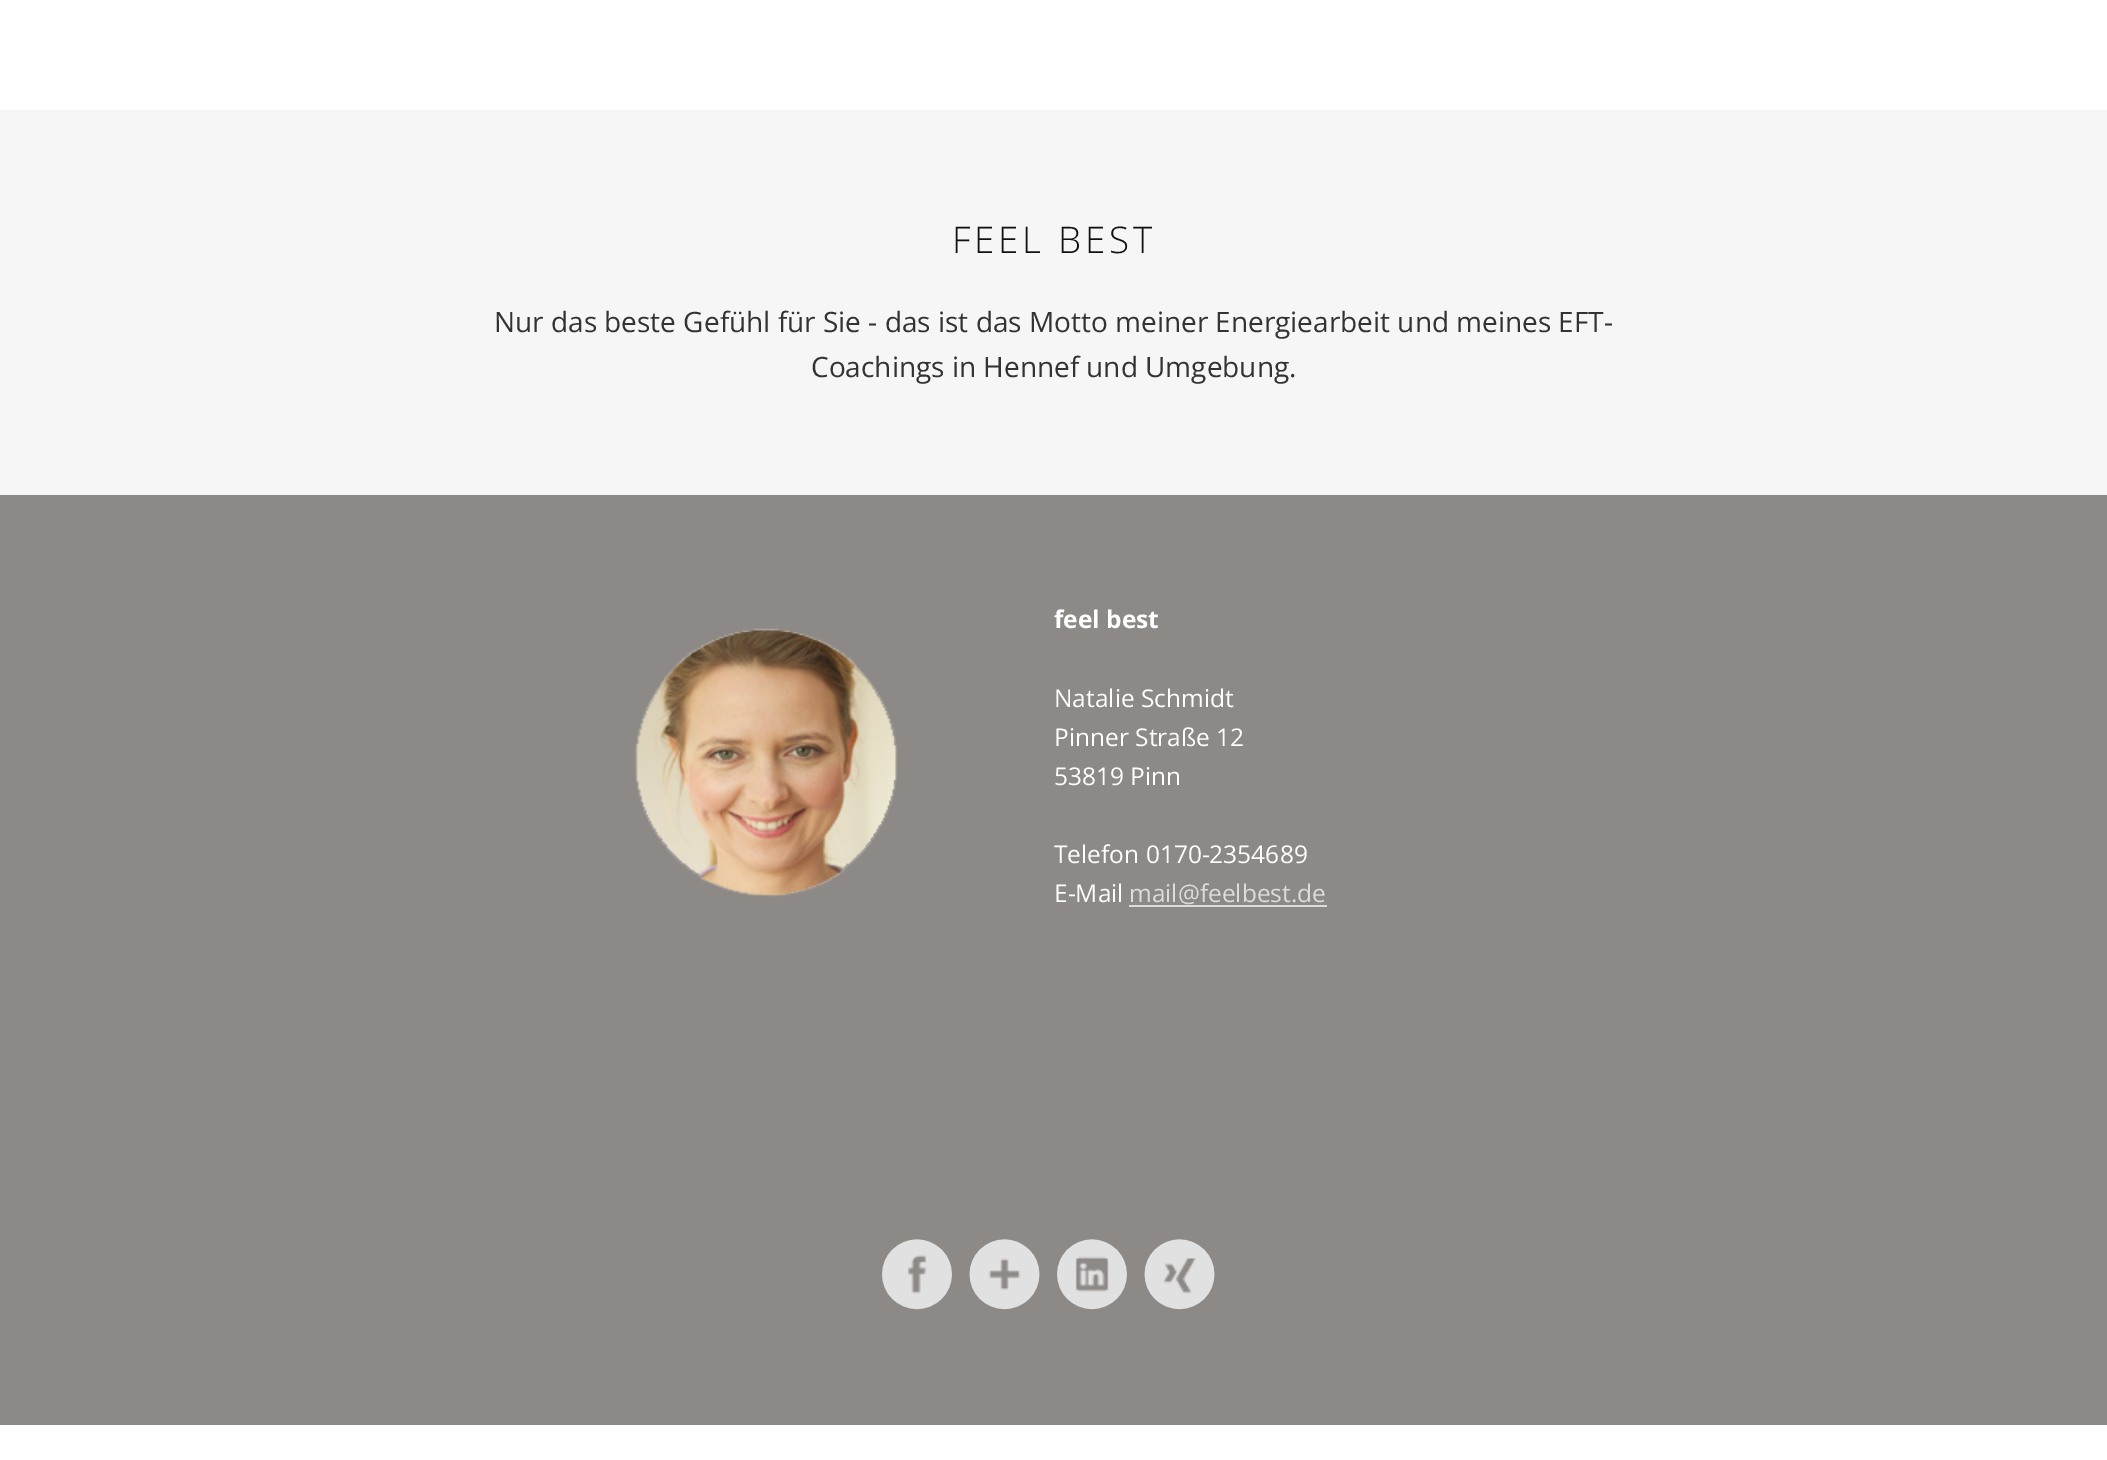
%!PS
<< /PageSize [2107 1460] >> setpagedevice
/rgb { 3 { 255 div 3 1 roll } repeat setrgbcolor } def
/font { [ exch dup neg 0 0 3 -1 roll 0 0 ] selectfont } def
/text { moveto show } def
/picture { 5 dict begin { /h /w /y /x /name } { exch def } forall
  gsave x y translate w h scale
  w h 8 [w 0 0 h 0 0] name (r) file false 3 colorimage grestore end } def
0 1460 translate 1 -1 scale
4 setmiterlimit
255 255 255 rgb
0 0 2107 1460 rectfill
246 246 246 rgb
0 110 2107 385 rectfill
140 137 135 rgb
0 495 2107 930 rectfill
(img_01.rgb) 882 1239 70 71 picture
(img_02.rgb) 969 1239 71 71 picture
(img_03.rgb) 1057 1239 70 71 picture
(img_04.rgb) 1144 1239 71 71 picture
(img_05.rgb) 635 628 263 269 picture
221 220 219 rgb
1129 905 198 2 rectfill
/OpenSans-Light 36.75 font
17 17 17 rgb
952 253 moveto 3.75 0 (FEEL BEST) ashow
/OpenSans-Regular 28 font
51 51 51 rgb
(Nur das beste Gefühl für Sie - das ist das Motto meiner Energiearbeit und meines EFT-) 494 332 text
(Coachings in Hennef und Umgebung.) 811 377 text
/OpenSans-Bold 24.5 font
255 255 255 rgb
(feel best) 1054 628 text
/OpenSans-Regular 24.5 font
(Natalie Schmidt) 1054 707 text
(Pinner Straße 12) 1054 746 text
(53819 Pinn) 1054 785 text
(Telefon 0170-2354689) 1054 863 text
(E-Mail) 1054 902 text
221 220 219 rgb
(mail@feelbest.de) 1129 902 text
showpage
